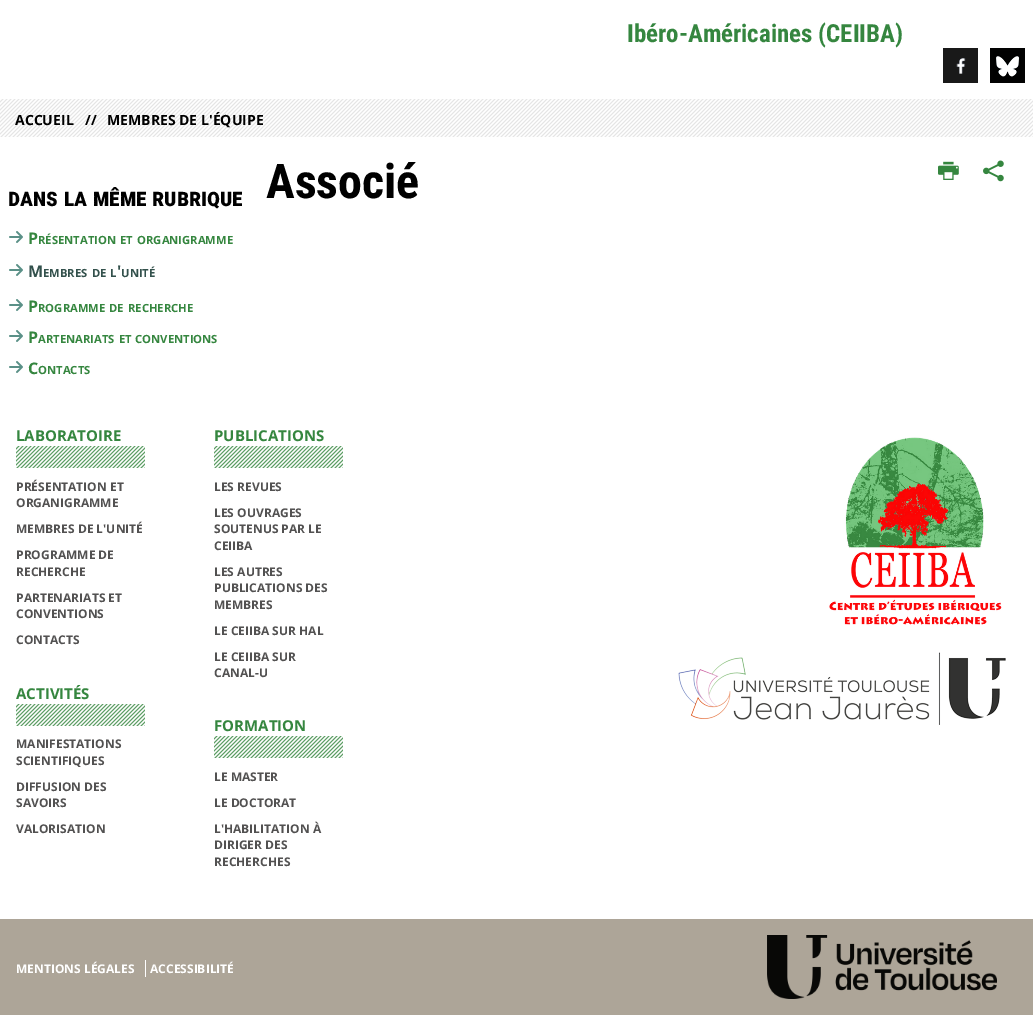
%!PS
<< /PageSize [1033 1015] >> setpagedevice
/rgb { 3 { 255 div 3 1 roll } repeat setrgbcolor } def
/font { [ exch dup neg 0 0 3 -1 roll 0 0 ] selectfont } def
/text { moveto show } def
/picture { 5 dict begin { /h /w /y /x /name } { exch def } forall
  gsave x y translate w h scale
  w h 8 [w 0 0 h 0 0] name (r) file false 3 colorimage grestore end } def
0 1015 translate 1 -1 scale
4 setmiterlimit
255 255 255 rgb
0 0 1033 1015 rectfill
(img_01.rgb) 943 48 35 35 picture
(img_02.rgb) 990 48 35 35 picture
229 229 229 rgb
0 99 1033 38 rectfill
(img_03.rgb) 0 99 1033 38 picture
(img_04.rgb) 938 161 21 19 picture
(img_05.rgb) 983 160 21 22 picture
(img_06.rgb) 9 231 14 12 picture
(img_06.rgb) 9 264 14 12 picture
(img_06.rgb) 9 299 14 12 picture
(img_06.rgb) 9 330 14 12 picture
(img_06.rgb) 9 361 14 12 picture
93 158 101 rgb
16 446 129 22 rectfill
(img_07.rgb) 16 446 129 22 picture
16 704 129 22 rectfill
(img_07.rgb) 16 704 129 22 picture
214 446 129 22 rectfill
(img_07.rgb) 214 446 129 22 picture
214 736 129 22 rectfill
(img_07.rgb) 214 736 129 22 picture
(img_08.rgb) 829 437 173 188 picture
(img_09.rgb) 678 652 328 73 picture
173 165 152 rgb
0 919 1033 96 rectfill
255 255 255 rgb
145 960 1 17 rectfill
(img_10.rgb) 767 935 230 64 picture
/RobotoCondensed-Bold 24.9 font
53 134 63 rgb
(Ibéro-Américaines \(CEIIBA\)) 627 42 text
/OpenSans-Bold 14 font
0 0 0 rgb
(ACCUEIL) 15 125 text
(//) 85 125 text
(MEMBRES DE L'ÉQUIPE) 107 125 text
/RobotoCondensed-Bold 48 font
(Associé) 266 198 text
/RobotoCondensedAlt-Bold 24.9 font
(Dans la même rubrique) 8 206 text
/OpenSans-Bold 16 font
53 134 63 rgb
(P) 28 244 text
/OpenSans-Bold 11.25 font
(RÉSENTATION) 38 244 text
(ET) 120 244 text
(ORGANIGRAMME) 137 244 text
/OpenSans-Bold 16 font
51 81 76 rgb
(M) 28 277 text
/OpenSans-Bold 11.25 font
(EMBRES) 43 277 text
(DE) 92 277 text
(L) 110 277 text
/OpenSans-Bold 16 font
(') 117 277 text
/OpenSans-Bold 11.25 font
(UNITÉ) 121 277 text
/OpenSans-Bold 16 font
53 134 63 rgb
(P) 28 312 text
/OpenSans-Bold 11.25 font
(ROGRAMME) 38 312 text
(DE) 109 312 text
(RECHERCHE) 128 312 text
/OpenSans-Bold 16 font
(P) 28 343 text
/OpenSans-Bold 11.25 font
(ARTENARIATS) 38 343 text
(ET) 119 343 text
(CONVENTIONS) 135 343 text
/OpenSans-Bold 16 font
(C) 28 374 text
/OpenSans-Bold 11.25 font
(ONTACTS) 38 374 text
/OpenSans-Bold 15 font
(LABORATOIRE) 16 441 text
/OpenSans-Bold 12 font
82 81 81 rgb
(PRÉSENTATION ET) 16 491 text
(ORGANIGRAMME) 16 507 text
(MEMBRES DE L'UNITÉ) 16 533 text
(PROGRAMME DE) 16 559 text
(RECHERCHE) 16 576 text
(PARTENARIATS ET) 16 602 text
(CONVENTIONS) 16 618 text
(CONTACTS) 16 644 text
/OpenSans-Bold 15 font
53 134 63 rgb
(ACTIVITÉS) 16 699 text
/OpenSans-Bold 12 font
82 81 81 rgb
(MANIFESTATIONS) 16 748 text
(SCIENTIFIQUES) 16 765 text
(DIFFUSION DES) 16 791 text
(SAVOIRS) 16 807 text
(VALORISATION) 16 833 text
/OpenSans-Bold 15 font
53 134 63 rgb
(PUBLICATIONS) 214 441 text
/OpenSans-Bold 12 font
82 81 81 rgb
(LES REVUES) 214 491 text
(LES OUVRAGES) 214 517 text
(SOUTENUS PAR LE) 214 533 text
(CEIIBA) 214 550 text
(LES AUTRES) 214 576 text
(PUBLICATIONS DES) 214 592 text
(MEMBRES) 214 609 text
(LE CEIIBA SUR HAL) 214 635 text
(LE CEIIBA SUR) 214 661 text
(CANAL-U) 214 677 text
/OpenSans-Bold 15 font
53 134 63 rgb
(FORMATION) 214 731 text
/OpenSans-Bold 12 font
82 81 81 rgb
(LE MASTER) 214 781 text
(LE DOCTORAT) 214 807 text
(L'HABILITATION À) 214 833 text
(DIRIGER DES) 214 849 text
(RECHERCHES) 214 866 text
255 255 255 rgb
(MENTIONS LÉGALES) 16 973 text
(ACCESSIBILITÉ) 150 973 text
showpage
